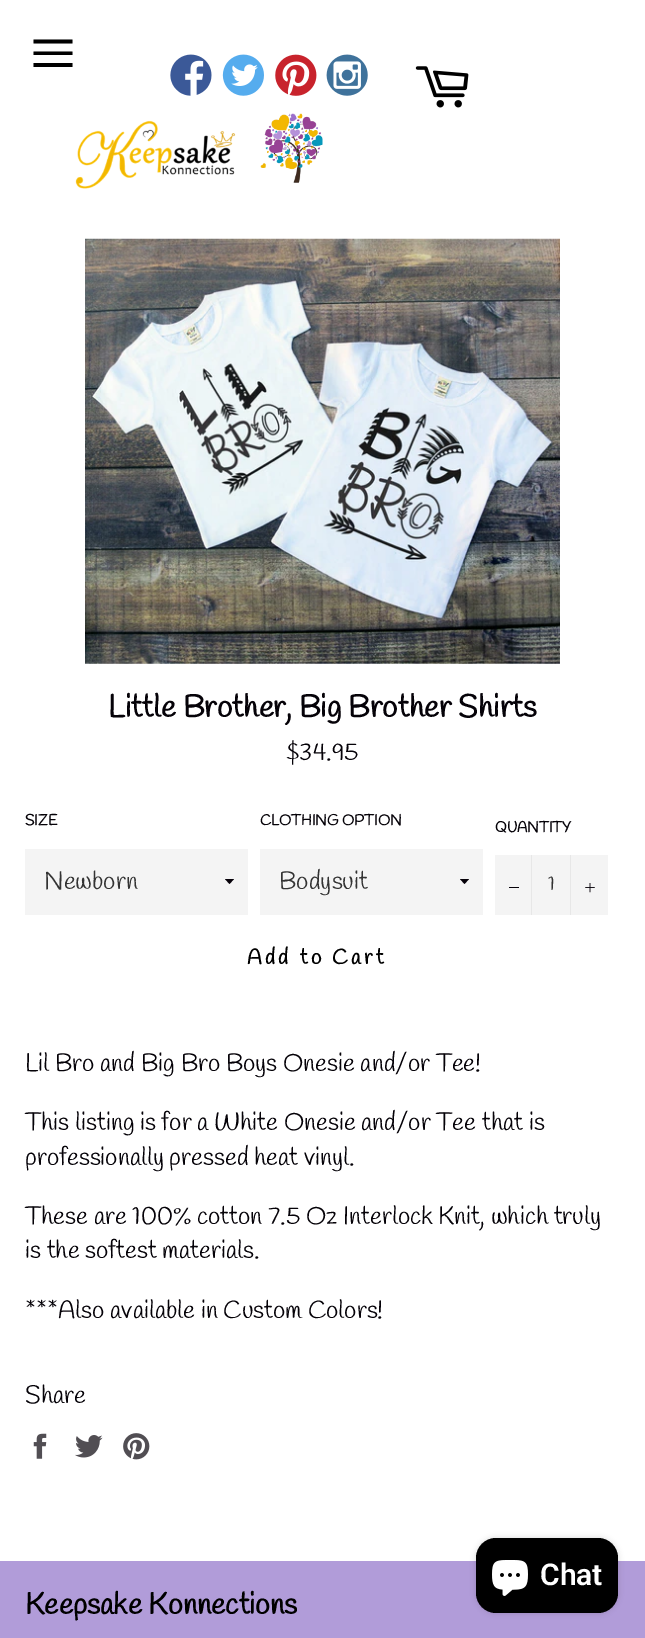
%!PS
<< /PageSize [645 1638] /PageUsesTransparency true >> setpagedevice
/rgb { 3 { 255 div 3 1 roll } repeat setrgbcolor } def
/font { [ exch dup neg 0 0 3 -1 roll 0 0 ] selectfont } def
/text { moveto show } def
/alpha { dup .setfillconstantalpha .setstrokeconstantalpha } def
/roundrect { 5 dict begin { /r /h /w /y /x } { exch def } forall
  x r add y moveto x w add y 2 copy h add r arct x w add y h add x 1 index r arct
  x y h add x y r arct x y 2 copy exch w add exch r arct closepath end } def
/shadow { 12 dict begin { /a /b /q /h /w /y /x } { exch def } forall gsave /was 0 def
  9 -2 -9 { dup b mul 4 div /e exch def 1 sub .425 mul 2.718 exch exp 1 add a .99 .min exch div /now exch def
    1 1 now sub 1 was sub div sub alpha /was now def
    w h .min e 2 mul add 0 gt { x e sub y e sub w e 2 mul add h e 2 mul add
      q e add b .6 mul add w h .min 2 div e add .min 0 .max roundrect fill } if } for grestore end } def
/picture { 5 dict begin { /h /w /y /x /name } { exch def } forall
  gsave x y translate w h scale
  w h 8 [w 0 0 h 0 0] name (r) file false 3 colorimage grestore end } def
0 .pushpdf14devicefilter
0 1638 translate 1 -1 scale
4 setmiterlimit
255 255 255 rgb
0 0 645 1638 rectfill
0 0 0 rgb
33.5 51.5 moveto 39 0 rlineto 0 3.5 rlineto -39 0 rlineto closepath 33.5 39.5 moveto 39 0 rlineto 0 4 rlineto -39 0 rlineto closepath 33.5 63 moveto 39 0 rlineto 0 4 rlineto -39 0 rlineto closepath fill
(img_01.rgb) 170 54 42 42 picture
(img_02.rgb) 222 54 42 42 picture
(img_03.rgb) 275 54 42 42 picture
(img_04.rgb) 326 54 42 42 picture
(img_05.rgb) 415 66 54 42 picture
(img_06.rgb) 75 113 248 76 picture
(img_07.rgb) 85 238 475 426 picture
244 244 244 rgb
25 849 223 66 rectfill
6 1 9 rgb
225 879 moveto 4.5 5 rlineto 4.5 -5 rlineto closepath fill
244 244 244 rgb
260 849 223 66 rectfill
6 1 9 rgb
460 879 moveto 4.5 5 rlineto 4.5 -5 rlineto closepath fill
244 244 244 rgb
495 855 113 60 rectfill
231 231 231 rgb
531 855 1 60 rectfill
6 1 9 rgb
509 887 10 1 rectfill
231 231 231 rgb
570 855 1 60 rectfill
(img_08.rgb) 585 883 10 10 picture
(img_09.rgb) 33 1433 14 26 picture
(img_10.rgb) 75 1435 28 23 picture
(img_11.rgb) 123 1433 27 27 picture
177 156 217 rgb
0 1561 645 77 rectfill
0 0 0 rgb
476 1538 142 75 20 3 0.15 shadow
476 1538 142 75 20 roundrect fill
(img_12.rgb) 492 1560 36 36 picture
/Handlee-Bold 31.25 font
5 2 8 rgb
(Little Brother, Big Brother Shirts) 108 717 text
/Handlee-Regular 25 font
($34.95) 286 760 text
/Handlee-Bold 15 font
(SIZE) 25 825 text
/Handlee-Regular 25 font
51 51 51 rgb
(Newborn) 44 889 text
/Handlee-Bold 15 font
5 2 8 rgb
(CLOTHING OPTION) 260 825 text
/Handlee-Regular 25 font
51 51 51 rgb
(Bodysuit) 279 889 text
/Handlee-Bold 15 font
5 2 8 rgb
(QUANTITY) 495 832 text
/Handlee-Regular 20 font
51 51 51 rgb
(1) 548 890 text
/Handlee-Bold 21.25 font
0 0 0 rgb
247 964 moveto 3.25 0 (Add to Cart) ashow
/Handlee-Regular 25 font
5 2 8 rgb
(Lil Bro and Big Bro Boys Onesie and/or Tee!) 25 1071 text
(This listing is for a White Onesie and/or Tee that is) 25 1130 text
(professionally pressed heat vinyl.) 25 1165 text
(These are 100% cotton 7.5 Oz Interlock Knit, which truly) 25 1224 text
(is the softest materials.) 25 1258 text
(***Also available in Custom Colors!) 25 1318 text
(Share) 25 1403 text
/Handlee-Bold 30 font
0 0 0 rgb
(Keepsake Konnections) 25 1614 text
/Roboto-SemiBold 30 font
255 255 255 rgb
(Chat) 540 1585 text
.poppdf14devicefilter showpage
